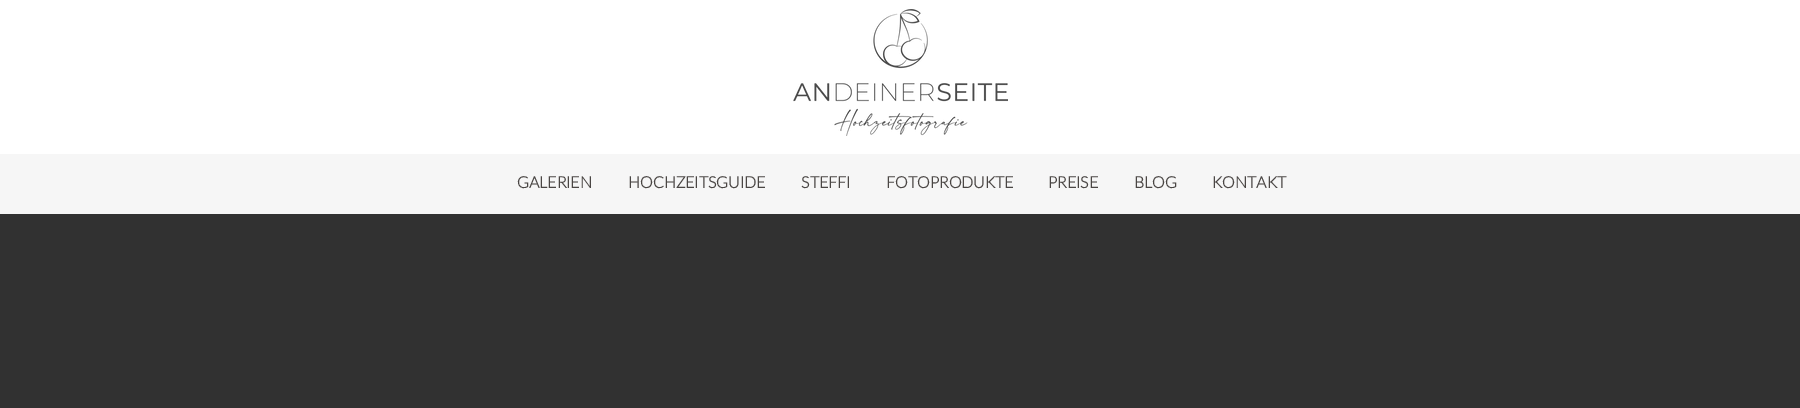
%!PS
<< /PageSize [1800 408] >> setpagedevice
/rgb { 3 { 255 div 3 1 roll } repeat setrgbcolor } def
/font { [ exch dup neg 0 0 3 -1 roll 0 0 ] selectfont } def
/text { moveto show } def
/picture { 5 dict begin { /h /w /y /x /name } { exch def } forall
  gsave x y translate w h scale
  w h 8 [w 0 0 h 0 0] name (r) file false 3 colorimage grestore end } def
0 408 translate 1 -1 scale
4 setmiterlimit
49 49 49 rgb
0 0 1800 408 rectfill
255 255 255 rgb
0 0 1800 154 rectfill
(img_01.rgb) 793 9 215 127 picture
246 246 246 rgb
0 154 1800 60 rectfill
/Lato-Bold 16 font
74 70 68 rgb
(GALERIEN) 517 188 text
(HOCHZEITSGUIDE) 628 188 text
(STEFFI) 801 188 text
(FOTOPRODUKTE) 886 188 text
(PREISE) 1048 188 text
(BLOG) 1134 188 text
(KONTAKT) 1212 188 text
showpage
